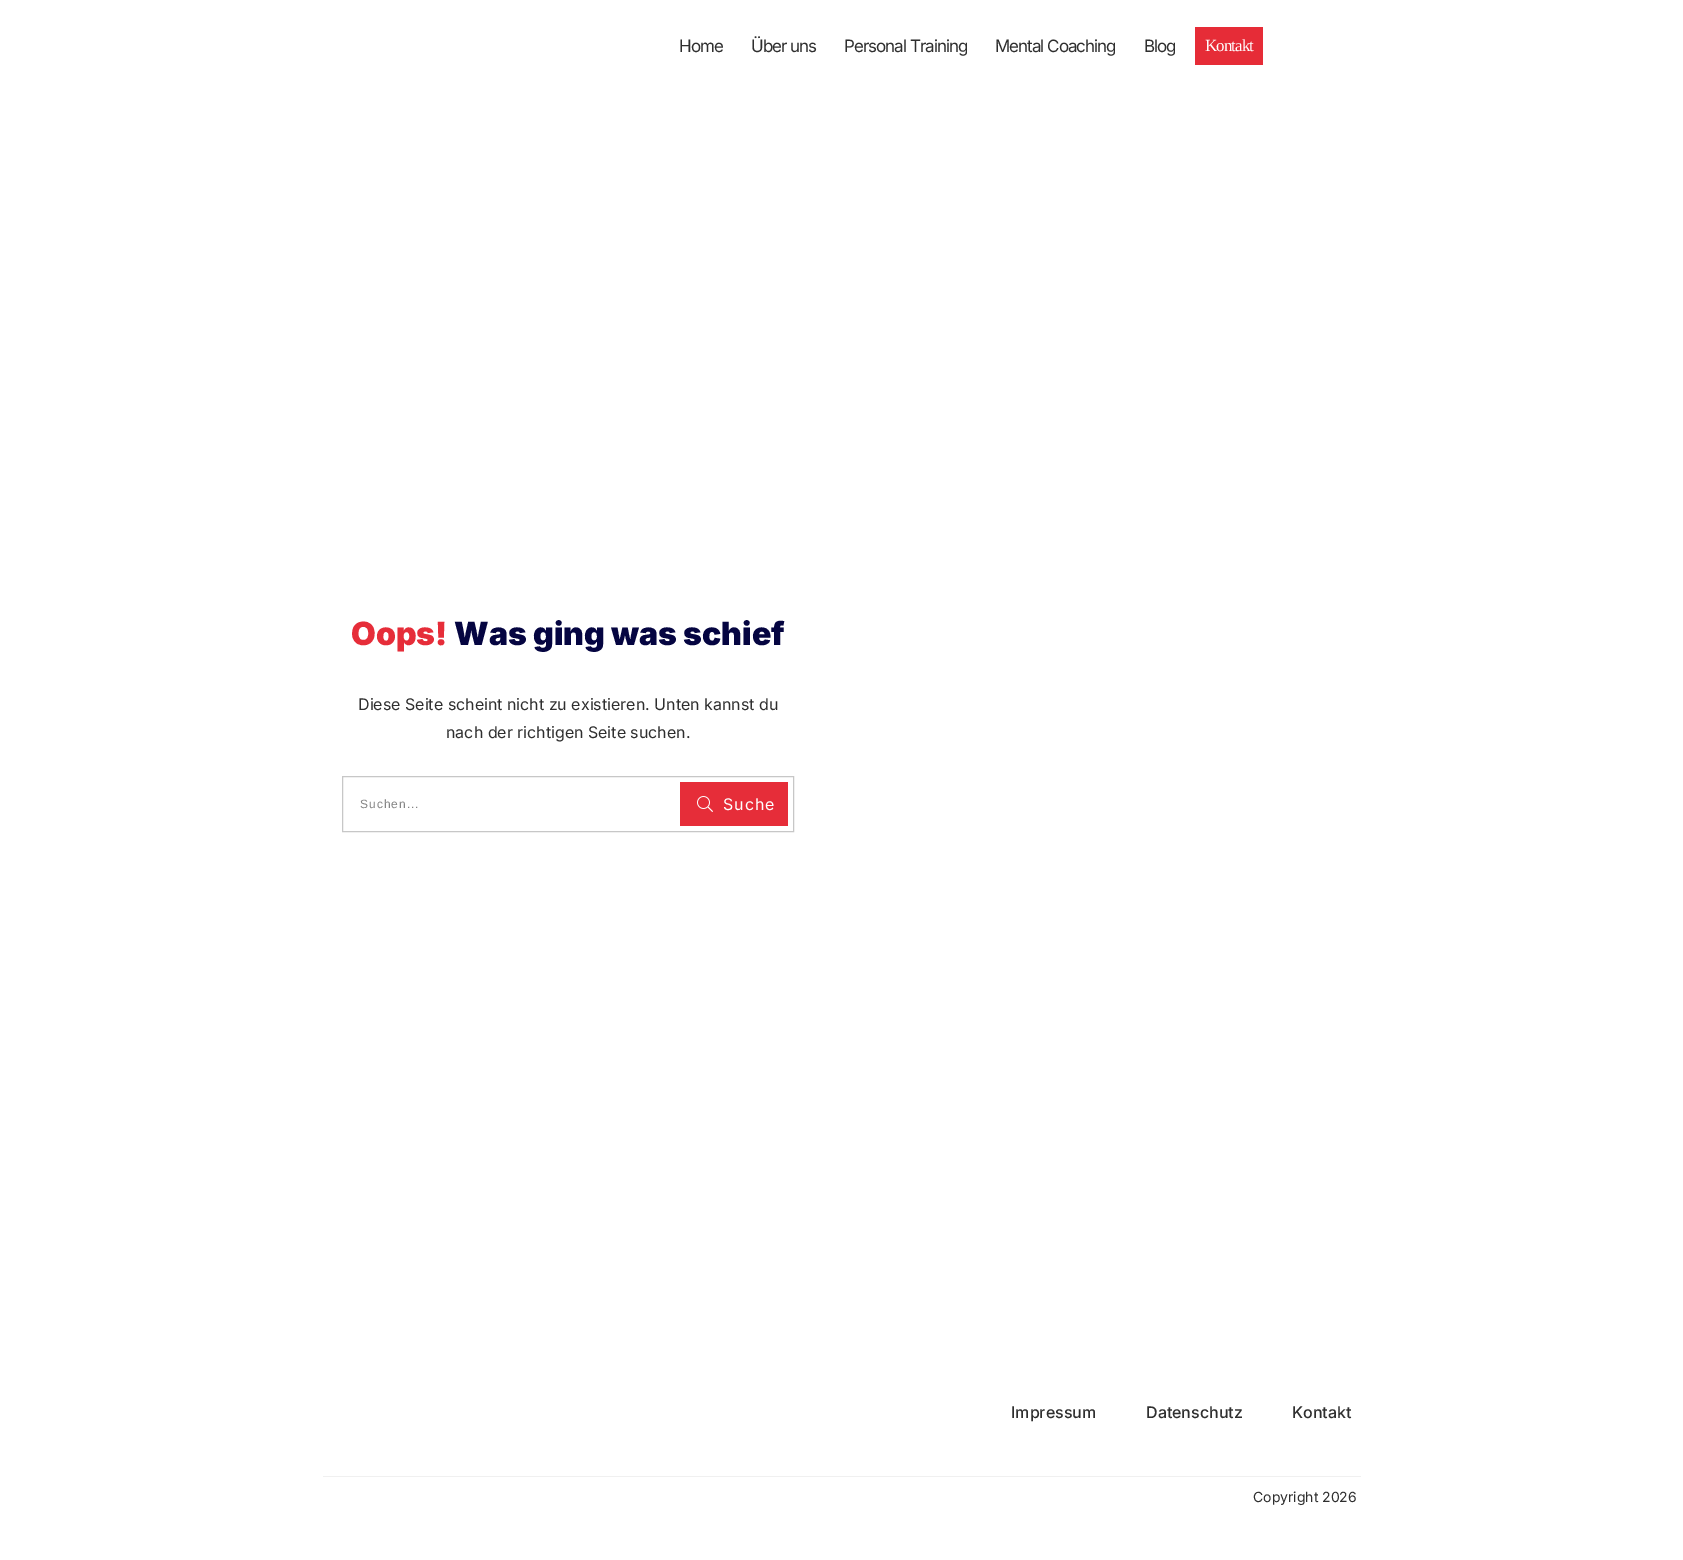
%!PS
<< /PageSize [1683 1560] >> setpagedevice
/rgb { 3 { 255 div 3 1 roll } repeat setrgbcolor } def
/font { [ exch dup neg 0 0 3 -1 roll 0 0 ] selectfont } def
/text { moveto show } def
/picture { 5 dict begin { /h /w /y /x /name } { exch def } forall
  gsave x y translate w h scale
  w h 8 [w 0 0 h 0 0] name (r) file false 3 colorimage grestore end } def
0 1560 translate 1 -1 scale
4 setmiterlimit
255 255 255 rgb
0 0 1683 1560 rectfill
230 44 55 rgb
1195 27 68 38 rectfill
199 199 199 rgb
342.5 776.5 451 55 rectstroke
230 45 57 rgb
680 782 108 44 rectfill
(img_01.rgb) 697 796 16 16 picture
240 240 240 rgb
323 1476 1038 1 rectfill
/Inter-Regular 17 font
47 47 47 rgb
679 52 moveto -1 0 (Home) ashow
751 52 moveto -1 0 (Über uns) ashow
gsave
844 29 123 34 rectclip
844 52 moveto -1 0 (Personal Training) ashow
grestore
995 52 moveto -1 0 (Mental Coaching) ashow
1144 52 moveto -1 0 (Blog) ashow
/LiberationSerif-Regular 17 font
255 255 255 rgb
1205 51 moveto -1 0 (Kontakt) ashow
/Inter-Black 32 font
230 45 57 rgb
(Oops!) 351 645 text
5 5 65 rgb
(Was ging was schief) 454 645 text
/Inter-Regular 16 font
47 47 47 rgb
(Diese Seite scheint nicht zu existieren. Unten kannst du) 358 710 text
(nach der richtigen Seite suchen.) 446 738 text
/LiberationSans-Regular 12 font
133 133 133 rgb
360 808 moveto 1 0 (Suchen...) ashow
/Inter-Regular 16 font
255 255 255 rgb
723 810 moveto 1 0 (Suche) ashow
/Inter-Medium 16 font
47 47 47 rgb
(Impressum) 1011 1418 text
(Datenschutz) 1146 1418 text
(Kontakt) 1292 1418 text
/Inter-Regular 14 font
(Copyright 2026) 1253 1502 text
showpage
